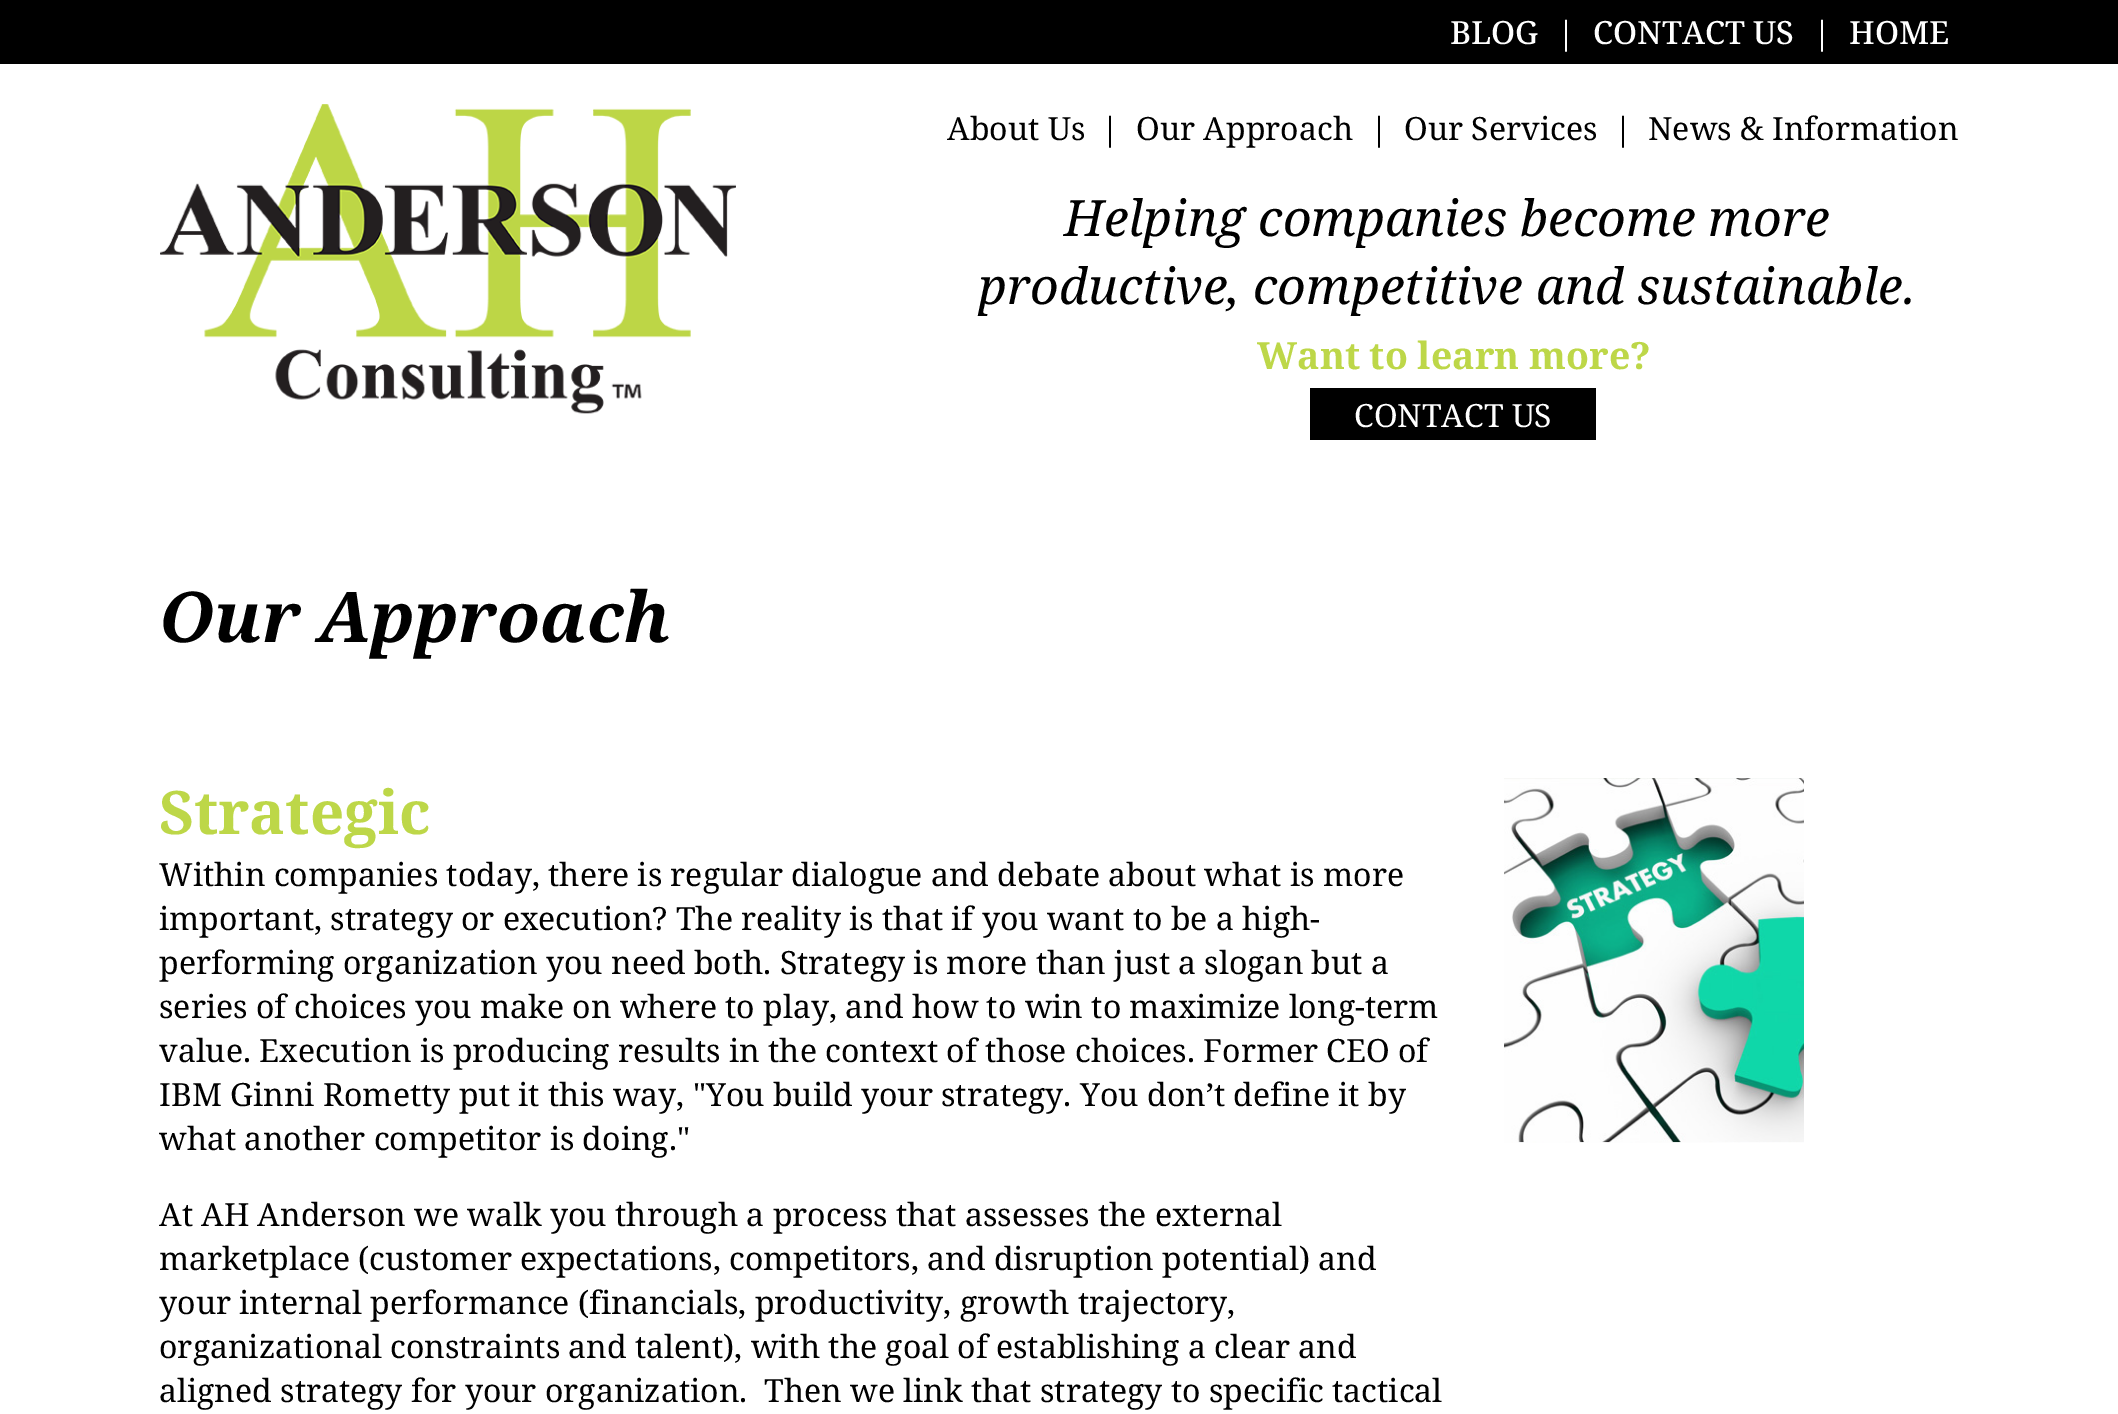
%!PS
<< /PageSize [2118 1414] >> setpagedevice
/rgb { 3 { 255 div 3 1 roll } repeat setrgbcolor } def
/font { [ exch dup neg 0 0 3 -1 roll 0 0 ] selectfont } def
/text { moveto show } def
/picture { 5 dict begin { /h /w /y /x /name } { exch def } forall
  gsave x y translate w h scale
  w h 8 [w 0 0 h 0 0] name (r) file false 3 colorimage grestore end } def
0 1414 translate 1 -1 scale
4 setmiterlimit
255 255 255 rgb
0 0 2118 1414 rectfill
0 0 0 rgb
0 0 2118 64 rectfill
(img_01.rgb) 160 104 576 310 picture
1310 388 286 52 rectfill
(img_02.rgb) 1504 778 300 365 picture
/NotoSerif-Medium 32 font
255 255 255 rgb
(BLOG) 1450 44 text
(|) 1557 44 text
(CONTACT US) 1593 44 text
(|) 1813 44 text
(HOME) 1849 44 text
/NotoSerif-Regular 32 font
0 0 0 rgb
(About Us) 947 140 text
(|) 1101 140 text
(Our Approach) 1136 140 text
(|) 1370 140 text
(Our Services) 1404 140 text
(|) 1614 140 text
(News & Information) 1648 140 text
/NotoSerif-Italic 50 font
(Helping companies become more) 1064 236 text
(productive, competitive and sustainable.) 978 304 text
/NotoSerif-Bold 37.5 font
189 215 72 rgb
(Want to learn more?) 1257 369 text
/NotoSerif-Regular 32 font
255 255 255 rgb
(CONTACT US) 1354 427 text
/NotoSerif-BoldItalic 70 font
0 0 0 rgb
(Our Approach) 159 642 text
/NotoSerif-Bold 60 font
189 215 72 rgb
(Strategic) 159 834 text
/NotoSerif-Regular 32 font
0 0 0 rgb
(Within companies today, there is regular dialogue and debate about what is more) 159 886 text
(important, strategy or execution? The reality is that if you want to be a high-) 159 930 text
(performing organization you need both. Strategy is more than just a slogan but a) 159 974 text
(series of choices you make on where to play, and how to win to maximize long-term) 159 1018 text
(value. Execution is producing results in the context of those choices. Former CEO of) 159 1062 text
(IBM Ginni Rometty put it this way, "You build your strategy. You don’t define it by) 159 1106 text
(what another competitor is doing.") 159 1150 text
(At AH Anderson we walk you through a process that assesses the external) 159 1226 text
(marketplace \(customer expectations, competitors, and disruption potential\) and) 159 1270 text
(your internal performance \(financials, productivity, growth trajectory,) 159 1314 text
(organizational constraints and talent\), with the goal of establishing a clear and) 159 1358 text
(aligned strategy for your organization.  Then we link that strategy to specific tactical) 159 1402 text
showpage
